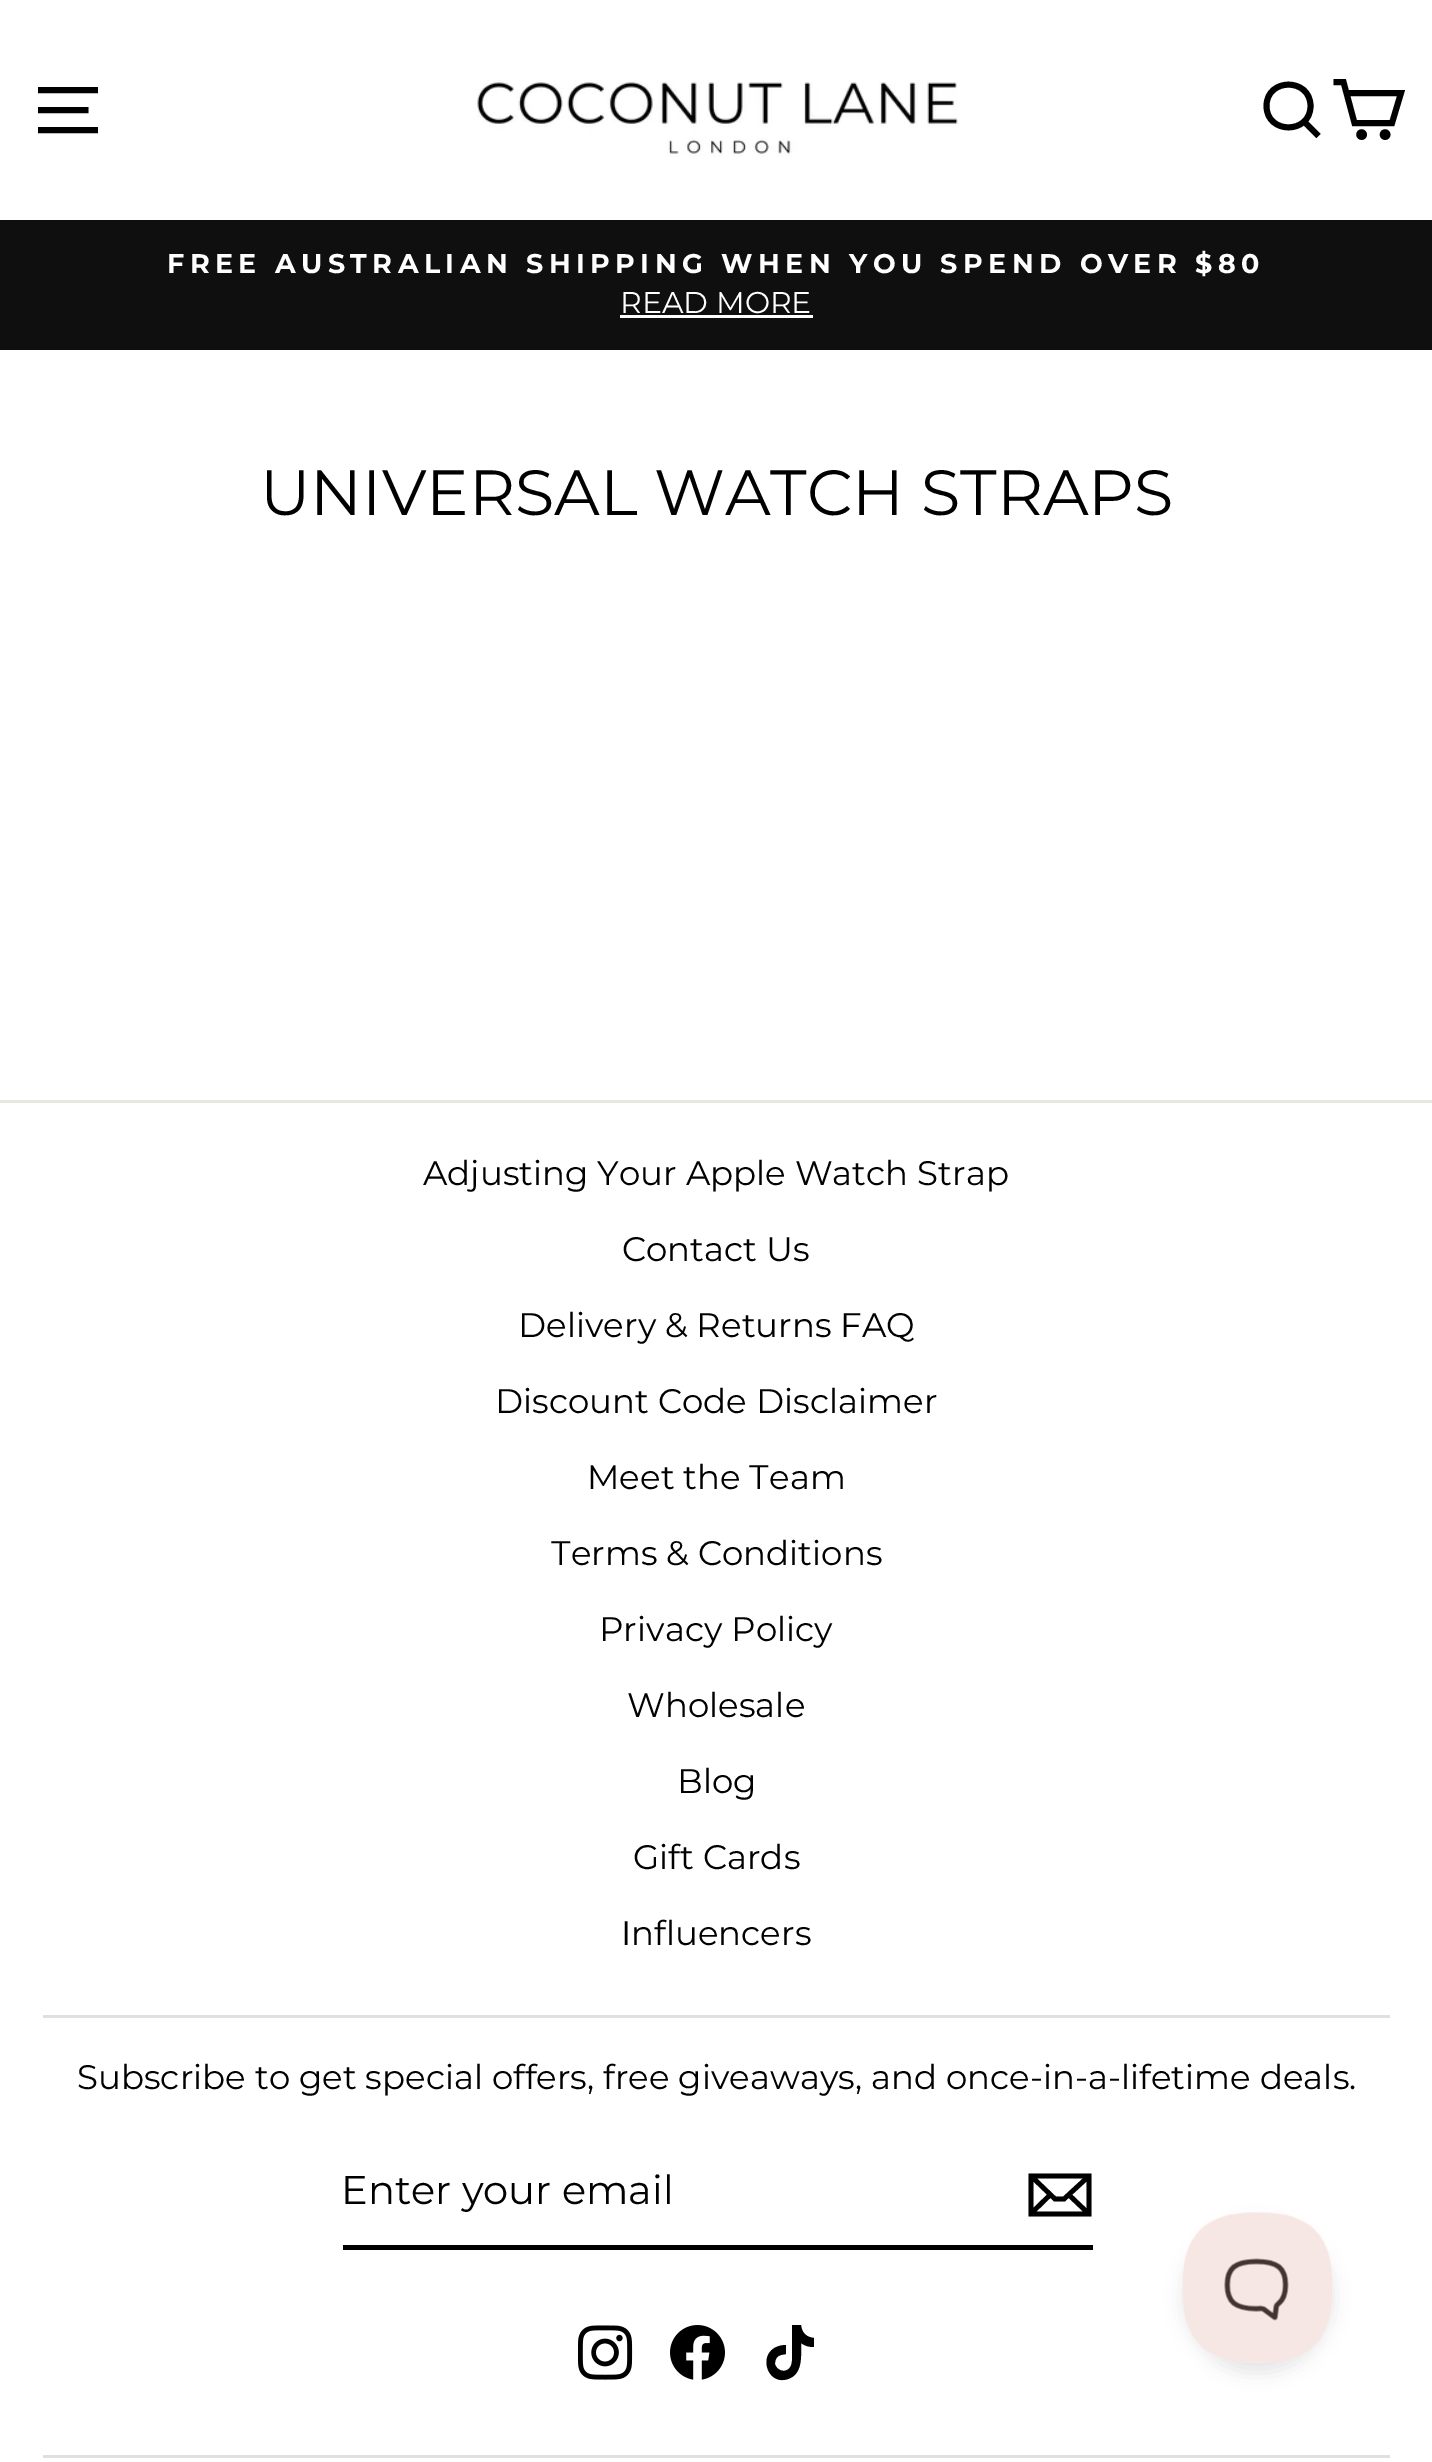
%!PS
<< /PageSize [1432 2462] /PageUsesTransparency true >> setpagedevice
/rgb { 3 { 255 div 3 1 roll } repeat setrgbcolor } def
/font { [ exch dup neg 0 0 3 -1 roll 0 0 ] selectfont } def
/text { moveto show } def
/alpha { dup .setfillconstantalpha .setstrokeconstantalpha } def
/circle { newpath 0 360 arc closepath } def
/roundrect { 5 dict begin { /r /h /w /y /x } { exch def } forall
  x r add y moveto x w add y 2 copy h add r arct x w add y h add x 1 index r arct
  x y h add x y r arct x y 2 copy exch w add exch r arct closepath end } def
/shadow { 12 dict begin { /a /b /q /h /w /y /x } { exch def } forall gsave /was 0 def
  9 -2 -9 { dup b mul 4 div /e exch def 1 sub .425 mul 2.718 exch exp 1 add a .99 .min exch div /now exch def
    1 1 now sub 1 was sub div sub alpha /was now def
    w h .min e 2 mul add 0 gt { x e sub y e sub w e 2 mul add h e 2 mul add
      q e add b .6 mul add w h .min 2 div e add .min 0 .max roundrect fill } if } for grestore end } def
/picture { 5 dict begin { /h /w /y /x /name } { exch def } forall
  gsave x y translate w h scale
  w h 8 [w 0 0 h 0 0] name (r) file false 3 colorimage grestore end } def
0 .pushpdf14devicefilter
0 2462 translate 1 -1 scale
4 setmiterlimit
255 255 255 rgb
0 0 1432 2462 rectfill
0 0 0 rgb
5.9 setlinewidth
38 90 moveto 60 0 rlineto 38 110 moveto 50.5 0 rlineto 38 130 moveto 60 0 rlineto stroke
(img_01.rgb) 477 80 481 77 picture
1310.5 106 moveto 0 28.5 -44 28.5 -44 0 rcurveto 0 -28.5 44 -28.5 44 0 rcurveto closepath 1318.5 136 moveto -14.5 -14.5 rlineto stroke
1346.5 93 moveto 54.5 0 rlineto -9 30 rlineto -37.5 0 rlineto -11 -41 rlineto -10 0 rlineto stroke
1361.6 134.6 2.3 circle gsave fill grestore
stroke
1385.1 134.6 2.3 circle gsave fill grestore
stroke
15 15 15 rgb
0 220 1432 130 rectfill
255 255 255 rgb
620 315 193 3 rectfill
232 232 225 rgb
0 1100 1432 3 rectfill
224 224 224 rgb
43 2015 1347 3 rectfill
0 0 0 rgb
343 2245 750 5 rectfill
4.7 setlinewidth
1089 2214 moveto -58 0 rlineto 0 -38 rlineto 58 0 rlineto closepath 1031 2176 moveto 24 23 rlineto 9 0 rlineto 25 -23 rlineto 1050.5 2194.5 moveto -19 18.5 rlineto 1088.5 2213.5 moveto -20 -19 rlineto stroke
(img_02.rgb) 578 2325 55 55 picture
(img_03.rgb) 670 2325 55 55 picture
801 2325 moveto 1 8 5 12 13 13 rcurveto 0 9 rlineto -5 0 -9 -1 -13 -4 rcurveto 0 13 2 31 -13 36 rcurveto -23 8 -33 -33 -2 -34 rcurveto 0 9 rlineto -5 1 rlineto -4 1 -6 4 -6 9 rcurveto 2 9 18 11 17 -6 rcurveto 0 -33 rlineto closepath fill
224 224 224 rgb
43 2455 1347 3 rectfill
0 0 0 rgb
1183 2223 150 150 75 9 0.1 shadow
(img_04.rgb) 1182 2212 151 151 picture
/Montserrat-Bold 27 font
255 255 255 rgb
167 273 moveto 5.4 0 (FREE AUSTRALIAN SHIPPING WHEN YOU SPEND OVER $80) ashow
/Montserrat-Thin 30 font
(READ MORE) 620 313 text
/Montserrat-Thin 63.75 font
0 0 0 rgb
(UNIVERSAL WATCH STRAPS) 260 515 text
/Montserrat-Thin 34 font
(Adjusting Your Apple Watch Strap) 423 1185 text
(Contact Us) 622 1261 text
(Delivery & Returns FAQ) 518 1337 text
(Discount Code Disclaimer) 495 1413 text
(Meet the Team) 587 1489 text
(Terms & Conditions) 551 1565 text
(Privacy Policy) 599 1641 text
(Wholesale) 627 1717 text
(Blog) 677 1793 text
(Gift Cards) 633 1869 text
(Influencers) 621 1945 text
(Subscribe to get special offers, free giveaways, and once-in-a-lifetime deals.) 77 2089 text
/Montserrat-Thin 40 font
(Enter your email) 341 2204 text
.poppdf14devicefilter showpage
